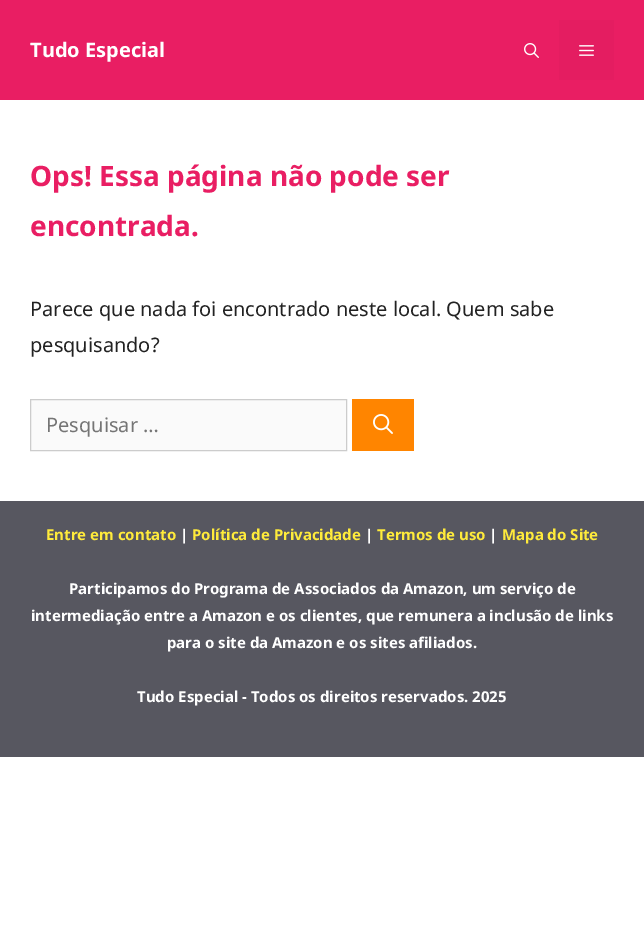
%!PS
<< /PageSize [644 928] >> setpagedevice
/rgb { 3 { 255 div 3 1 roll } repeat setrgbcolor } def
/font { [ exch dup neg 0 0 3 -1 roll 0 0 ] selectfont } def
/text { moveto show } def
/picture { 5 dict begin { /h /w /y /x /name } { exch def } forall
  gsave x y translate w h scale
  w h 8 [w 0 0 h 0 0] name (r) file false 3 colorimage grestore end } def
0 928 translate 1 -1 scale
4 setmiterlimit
255 255 255 rgb
0 0 644 928 rectfill
233 30 99 rgb
0 0 644 100 rectfill
(img_01.rgb) 524 43 15 15 picture
228 29 97 rgb
559 20 55 60 rectfill
(img_02.rgb) 579 45 15 11 picture
250 250 250 rgb
30.5 399.5 moveto 316 0 rlineto 0 51 rlineto -316 0 rlineto closepath gsave fill grestore
204 204 204 rgb
stroke
255 133 0 rgb
352 399 62 52 rectfill
(img_03.rgb) 373 414 20 20 picture
87 87 96 rgb
0 501 644 256 rectfill
/NotoSans-Bold 20 font
255 255 255 rgb
(Tudo Especial) 30 57 text
/NotoSans-Bold 28 font
233 30 99 rgb
(Ops! Essa página não pode ser) 30 186 text
(encontrada.) 30 236 text
/NotoSans-Regular 20 font
34 34 34 rgb
(Parece que nada foi encontrado neste local. Quem sabe) 30 316 text
(pesquisando?) 30 352 text
117 117 117 rgb
(Pesquisar …) 46 432 text
/NotoSans-Bold 15 font
255 235 59 rgb
(Entre em contato) 46 540 text
255 255 255 rgb
(|) 180 540 text
255 235 59 rgb
(Política de Privacidade) 192 540 text
255 255 255 rgb
(|) 365 540 text
255 235 59 rgb
(Termos de uso) 377 540 text
255 255 255 rgb
(|) 489 540 text
255 235 59 rgb
(Mapa do Site) 502 540 text
255 255 255 rgb
(Participamos do Programa de Associados da Amazon, um serviço de) 69 594 text
(intermediação entre a Amazon e os clientes, que remunera a inclusão de links) 31 621 text
(para o site da Amazon e os sites afiliados.) 167 648 text
(Tudo Especial - Todos os direitos reservados. 2025) 137 702 text
showpage
